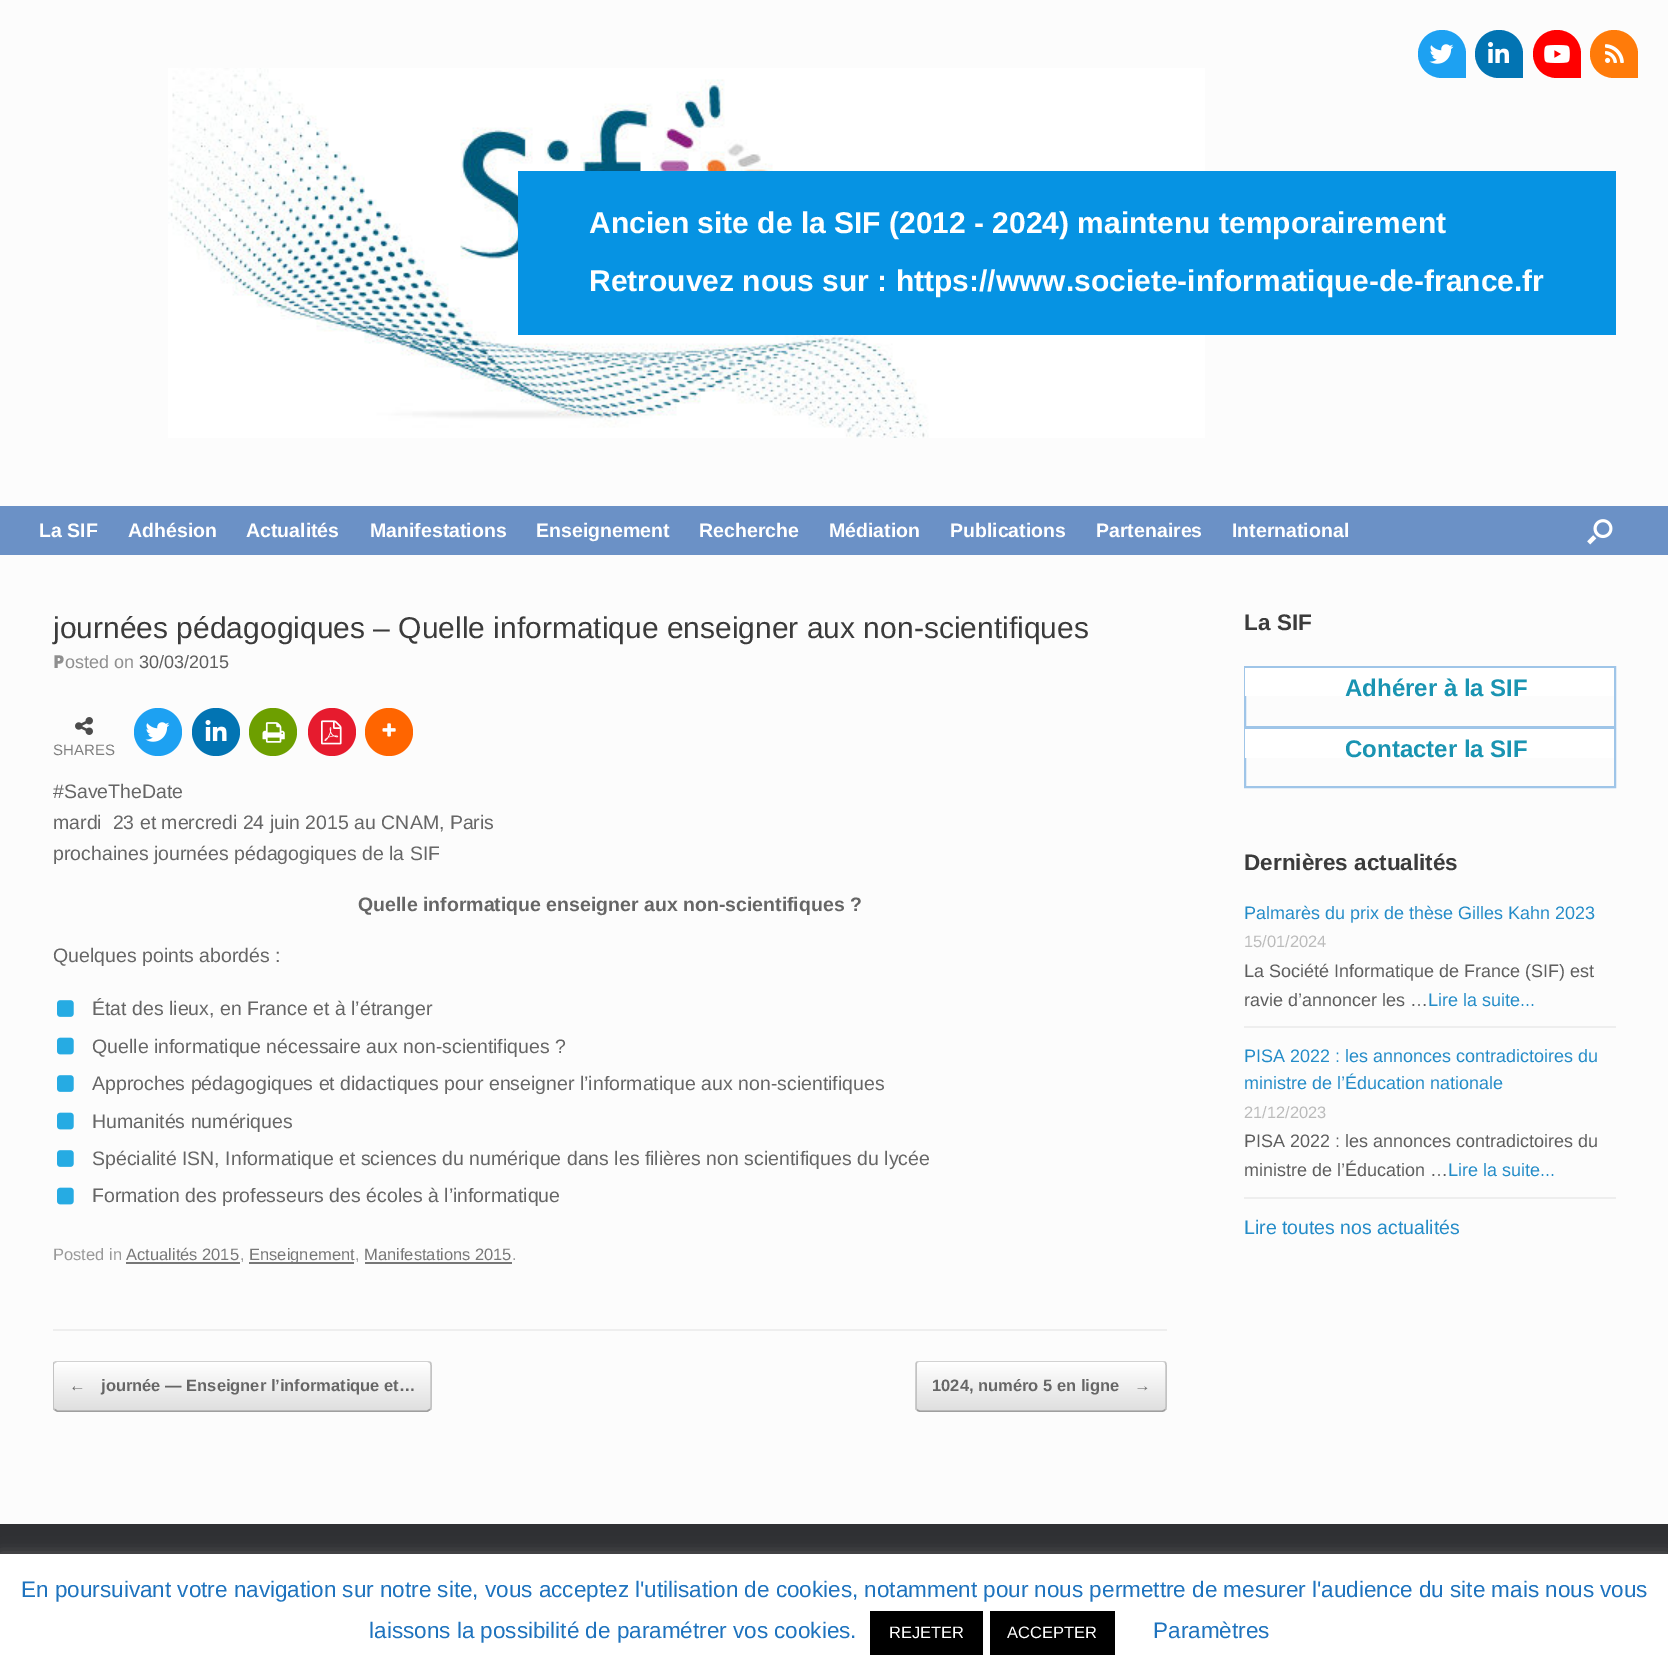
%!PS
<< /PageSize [1668 1680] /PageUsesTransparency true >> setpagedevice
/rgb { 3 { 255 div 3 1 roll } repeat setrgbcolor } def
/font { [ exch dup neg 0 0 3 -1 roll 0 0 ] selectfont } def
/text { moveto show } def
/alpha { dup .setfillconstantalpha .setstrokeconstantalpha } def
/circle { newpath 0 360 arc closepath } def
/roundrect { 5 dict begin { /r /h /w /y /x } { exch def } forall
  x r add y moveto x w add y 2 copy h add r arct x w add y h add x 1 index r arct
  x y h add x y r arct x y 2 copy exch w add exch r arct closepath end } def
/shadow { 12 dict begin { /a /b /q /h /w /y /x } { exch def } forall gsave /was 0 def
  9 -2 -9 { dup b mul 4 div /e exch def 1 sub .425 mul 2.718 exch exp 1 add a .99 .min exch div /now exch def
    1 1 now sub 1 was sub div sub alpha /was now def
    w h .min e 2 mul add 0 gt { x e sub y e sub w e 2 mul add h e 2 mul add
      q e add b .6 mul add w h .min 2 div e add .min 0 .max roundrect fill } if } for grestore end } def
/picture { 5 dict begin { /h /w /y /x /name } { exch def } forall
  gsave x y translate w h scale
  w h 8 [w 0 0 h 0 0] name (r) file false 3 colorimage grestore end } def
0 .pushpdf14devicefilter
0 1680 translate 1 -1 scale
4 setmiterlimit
47 48 51 rgb
0 0 1668 1680 rectfill
252 252 252 rgb
0 0 1668 506 rectfill
29 161 242 rgb
1442 30 moveto 13.5 0 24 10.5 24 24 rcurveto 0 24 rlineto -24 0 rlineto -13.5 0 -24 -10.5 -24 -24 rcurveto 0 -13.5 10.5 -24 24 -24 rcurveto closepath fill
(img_01.rgb) 1429 44 25 20 picture
2 116 179 rgb
1499 30 moveto 13.5 0 24 10.5 24 24 rcurveto 0 24 rlineto -24 0 rlineto -13.5 0 -24 -10.5 -24 -24 rcurveto 0 -13.5 10.5 -24 24 -24 rcurveto closepath fill
(img_02.rgb) 1488 42 21 21 picture
255 0 0 rgb
1557 30 moveto 13.5 0 24 10.5 24 24 rcurveto 0 24 rlineto -24 0 rlineto -13.5 0 -24 -10.5 -24 -24 rcurveto 0 -13.5 10.5 -24 24 -24 rcurveto closepath fill
(img_03.rgb) 1544 45 26 18 picture
255 123 10 rgb
1614 30 moveto 13.5 0 24 10.5 24 24 rcurveto 0 24 rlineto -24 0 rlineto -13.5 0 -24 -10.5 -24 -24 rcurveto 0 -13.5 10.5 -24 24 -24 rcurveto closepath fill
(img_04.rgb) 1605 44 19 19 picture
(img_05.rgb) 168 68 1037 370 picture
6 147 227 rgb
518 171 1098 164 rectfill
107 145 198 rgb
0 506 1668 49 rectfill
(img_06.rgb) 1587 519 26 26 picture
252 252 252 rgb
0 555 1668 969 rectfill
238 238 238 rgb
53 1329 1114 2 rectfill
(img_07.rgb) 75 717 18 18 picture
29 161 242 rgb
158 732 24 circle fill
(img_01.rgb) 145 722 25 20 picture
2 116 179 rgb
216 732 24 circle fill
(img_08.rgb) 205 720 22 21 picture
109 159 0 rgb
273 732 24 circle fill
(img_09.rgb) 262 722 23 21 picture
230 27 46 rgb
332 732 24 circle fill
(img_10.rgb) 321 720 21 25 picture
255 101 0 rgb
389 732 24 circle fill
(img_11.rgb) 382 723 14 14 picture
(img_12.rgb) 57 1000 17 17 picture
(img_13.rgb) 57 1037 17 18 picture
(img_12.rgb) 57 1075 17 17 picture
(img_13.rgb) 57 1112 17 18 picture
(img_12.rgb) 57 1150 17 17 picture
(img_13.rgb) 57 1187 17 18 picture
119 119 119 rgb
126 1262 114 2 rectfill
249 1262 105 2 rectfill
365 1262 147 2 rectfill
gsave
53 1361 379 51 5 roundrect clip newpath
gsave 53 1362 moveto 379 0 rlineto 0 48 rlineto -379 0 rlineto closepath clip newpath
<< /ShadingType 2 /ColorSpace /DeviceRGB /Coords [54 1410 54 1362] /Extend [true true] /Function << /FunctionType 2 /Domain [0 1] /C0 [0.875 0.875 0.875] /C1 [1 1 1] /N 1 >> >> shfill grestore
gsave 53 1410 moveto 379 0 rlineto 0 2 rlineto -379 0 rlineto closepath clip newpath
<< /ShadingType 2 /ColorSpace /DeviceRGB /Coords [54 1458 54 1410] /Extend [true true] /Function << /FunctionType 2 /Domain [0 1] /C0 [0.875 0.875 0.875] /C1 [1 1 1] /N 1 >> >> shfill grestore
grestore
gsave
53 1361 1114 51 rectclip
210 210 210 rgb
1.5 setlinewidth
54.5 1362.5 moveto 2.5 -1.5 rlineto 370.5 0 rlineto 2.5 1.5 rlineto stroke
grestore
195 195 195 rgb
1.5 setlinewidth
430 1362.5 moveto 1 0.5 1 1.5 1 2.5 rcurveto 0 42 rlineto 0 1 0 2 -1 2.5 rcurveto stroke
159 159 159 rgb
430 1409.5 moveto -2.5 1.5 rlineto -370.5 0 rlineto -2.5 -1.5 rlineto stroke
gsave
53 1361 1114 51 rectclip
195 195 195 rgb
54.5 1409.5 moveto -1 -0.5 -1.5 -1.5 -1.5 -2.5 rcurveto 0 -42 rlineto 0 -1 0.5 -2 1.5 -2.5 rcurveto stroke
grestore
gsave
915 1361 252 51 5 roundrect clip newpath
gsave 915 1362 moveto 252 0 rlineto 0 48 rlineto -252 0 rlineto closepath clip newpath
<< /ShadingType 2 /ColorSpace /DeviceRGB /Coords [917 1410 917 1362] /Extend [true true] /Function << /FunctionType 2 /Domain [0 1] /C0 [0.875 0.875 0.875] /C1 [1 1 1] /N 1 >> >> shfill grestore
gsave 915 1410 moveto 252 0 rlineto 0 2 rlineto -252 0 rlineto closepath clip newpath
<< /ShadingType 2 /ColorSpace /DeviceRGB /Coords [917 1458 917 1410] /Extend [true true] /Function << /FunctionType 2 /Domain [0 1] /C0 [0.875 0.875 0.875] /C1 [1 1 1] /N 1 >> >> shfill grestore
grestore
gsave
53 1361 1114 51 rectclip
210 210 210 rgb
917 1362.5 moveto 0.5 -1 1.5 -1.5 2.5 -1.5 rcurveto 243 0 rlineto 1 0 2 0.5 2.5 1.5 rcurveto stroke
grestore
195 195 195 rgb
1165 1362.5 moveto 1 0.5 1 1.5 1 2.5 rcurveto 0 42 rlineto 0 1 0 2 -1 2.5 rcurveto stroke
159 159 159 rgb
1165 1409.5 moveto -0.5 1 -1.5 1.5 -2.5 1.5 rcurveto -243 0 rlineto -1 0 -2 -0.5 -2.5 -1.5 rcurveto stroke
195 195 195 rgb
917 1409.5 moveto -1 -0.5 -1 -1.5 -1 -2.5 rcurveto 0 -42 rlineto 0 -1 0 -2 1 -2.5 rcurveto stroke
159 197 232 rgb
2 setlinewidth
1245 667 370 60 rectstroke
255 255 255 rgb
1245 668 369 28 rectfill
159 197 232 rgb
1245 729 370 58 rectstroke
255 255 255 rgb
1245 729 369 29 rectfill
238 238 238 rgb
1244 1026 372 2 rectfill
1244 1197 372 2 rectfill
172 171 171 rgb
0 1553 1668 126 0 7.5 0.3 shadow
255 255 255 rgb
0 1554 1668 126 rectfill
0 0 0 rgb
870 1611 113 44 rectfill
990 1611 125 44 rectfill
/LiberationSans-Bold 30 font
255 255 255 rgb
(Ancien site de la SIF \(2012 - 2024\) maintenu temporairement) 589 233 text
(Retrouvez nous sur : https://www.societe-informatique-de-france.fr) 589 291 text
/LiberationSans-Bold 19.5 font
(La SIF) 39 537 text
(Adhésion) 128 537 text
(Actualités) 246 537 text
(Manifestations) 370 537 text
(Enseignement) 536 537 text
(Recherche) 699 537 text
(Médiation) 829 537 text
(Publications) 950 537 text
(Partenaires) 1096 537 text
(International) 1232 537 text
/LiberationSans-Regular 30 font
59 59 59 rgb
(journées pédagogiques – Quelle informatique enseigner aux non-scientifiques) 53 638 text
/NotoSans-Black 18 font
143 143 143 rgb
(P) 53 668 text
/LiberationSans-Regular 18 font
(osted on) 65 668 text
94 94 94 rgb
(30/03/2015) 139 668 text
/LiberationSans-Regular 15 font
126 126 126 rgb
(SHARES) 53 755 text
/LiberationSans-Regular 19.5 font
102 102 102 rgb
(#SaveTheDate) 53 798 text
(mardi  23 et mercredi 24 juin 2015 au CNAM, Paris) 53 829 text
(prochaines journées pédagogiques de la SIF) 53 860 text
/LiberationSans-Bold 19.5 font
(Quelle informatique enseigner aux non-scientifiques ?) 358 911 text
/LiberationSans-Regular 19.5 font
(Quelques points abordés :) 53 962 text
(État des lieux, en France et à l’étranger) 92 1015 text
(Quelle informatique nécessaire aux non-scientifiques ?) 92 1053 text
(Approches pédagogiques et didactiques pour enseigner l’informatique aux non-scientifiques) 92 1090 text
(Humanités numériques) 92 1128 text
(Spécialité ISN, Informatique et sciences du numérique dans les filières non scientifiques du lycée) 92 1165 text
(Formation des professeurs des écoles à l’informatique) 92 1202 text
/LiberationSans-Regular 16.5 font
153 153 153 rgb
(Posted in) 53 1260 text
119 119 119 rgb
(Actualités 2015) 126 1260 text
153 153 153 rgb
(,) 240 1260 text
119 119 119 rgb
(Enseignement) 249 1260 text
153 153 153 rgb
(,) 355 1260 text
119 119 119 rgb
(Manifestations 2015) 364 1260 text
153 153 153 rgb
(.) 512 1260 text
/LiberationSans-Bold 16.5 font
102 102 102 rgb
(←) 69 1391 text
(journée — Enseigner l’informatique et…) 101 1391 text
(1024, numéro 5 en ligne) 932 1391 text
(→) 1134 1391 text
/LiberationSans-Bold 22.5 font
59 59 59 rgb
(La SIF) 1244 630 text
/LiberationSans-Bold 24 font
26 148 178 rgb
(Adhérer à la SIF) 1345 696 text
(Contacter la SIF) 1345 757 text
/LiberationSans-Bold 22.5 font
59 59 59 rgb
(Dernières actualités) 1244 870 text
/LiberationSans-Regular 18 font
36 140 200 rgb
(Palmarès du prix de thèse Gilles Kahn 2023) 1244 919 text
/LiberationSans-Regular 16.5 font
187 187 187 rgb
(15/01/2024) 1244 947 text
/LiberationSans-Regular 18 font
94 94 94 rgb
(La Société Informatique de France \(SIF\) est) 1244 977 text
(ravie d’annoncer les …) 1244 1006 text
36 140 200 rgb
(Lire la suite...) 1428 1006 text
(PISA 2022 : les annonces contradictoires du) 1244 1062 text
(ministre de l’Éducation nationale) 1244 1089 text
/LiberationSans-Regular 16.5 font
187 187 187 rgb
(21/12/2023) 1244 1118 text
/LiberationSans-Regular 18 font
94 94 94 rgb
(PISA 2022 : les annonces contradictoires du) 1244 1147 text
(ministre de l’Éducation …) 1244 1176 text
36 140 200 rgb
(Lire la suite...) 1448 1176 text
/LiberationSans-Regular 19.5 font
(Lire toutes nos actualités) 1244 1234 text
/LiberationSans-Regular 22.5 font
30 115 190 rgb
(En poursuivant votre navigation sur notre site, vous acceptez l'utilisation de cookies, notamment pour nous permettre de mesurer l'audience du site mais nous vous) 21 1597 text
(laissons la possibilité de paramétrer vos cookies.) 369 1638 text
/LiberationSans-Regular 16.5 font
255 255 255 rgb
(REJETER) 889 1638 text
(ACCEPTER) 1007 1638 text
/LiberationSans-Regular 22.5 font
30 115 190 rgb
(Paramètres) 1153 1638 text
.poppdf14devicefilter showpage
